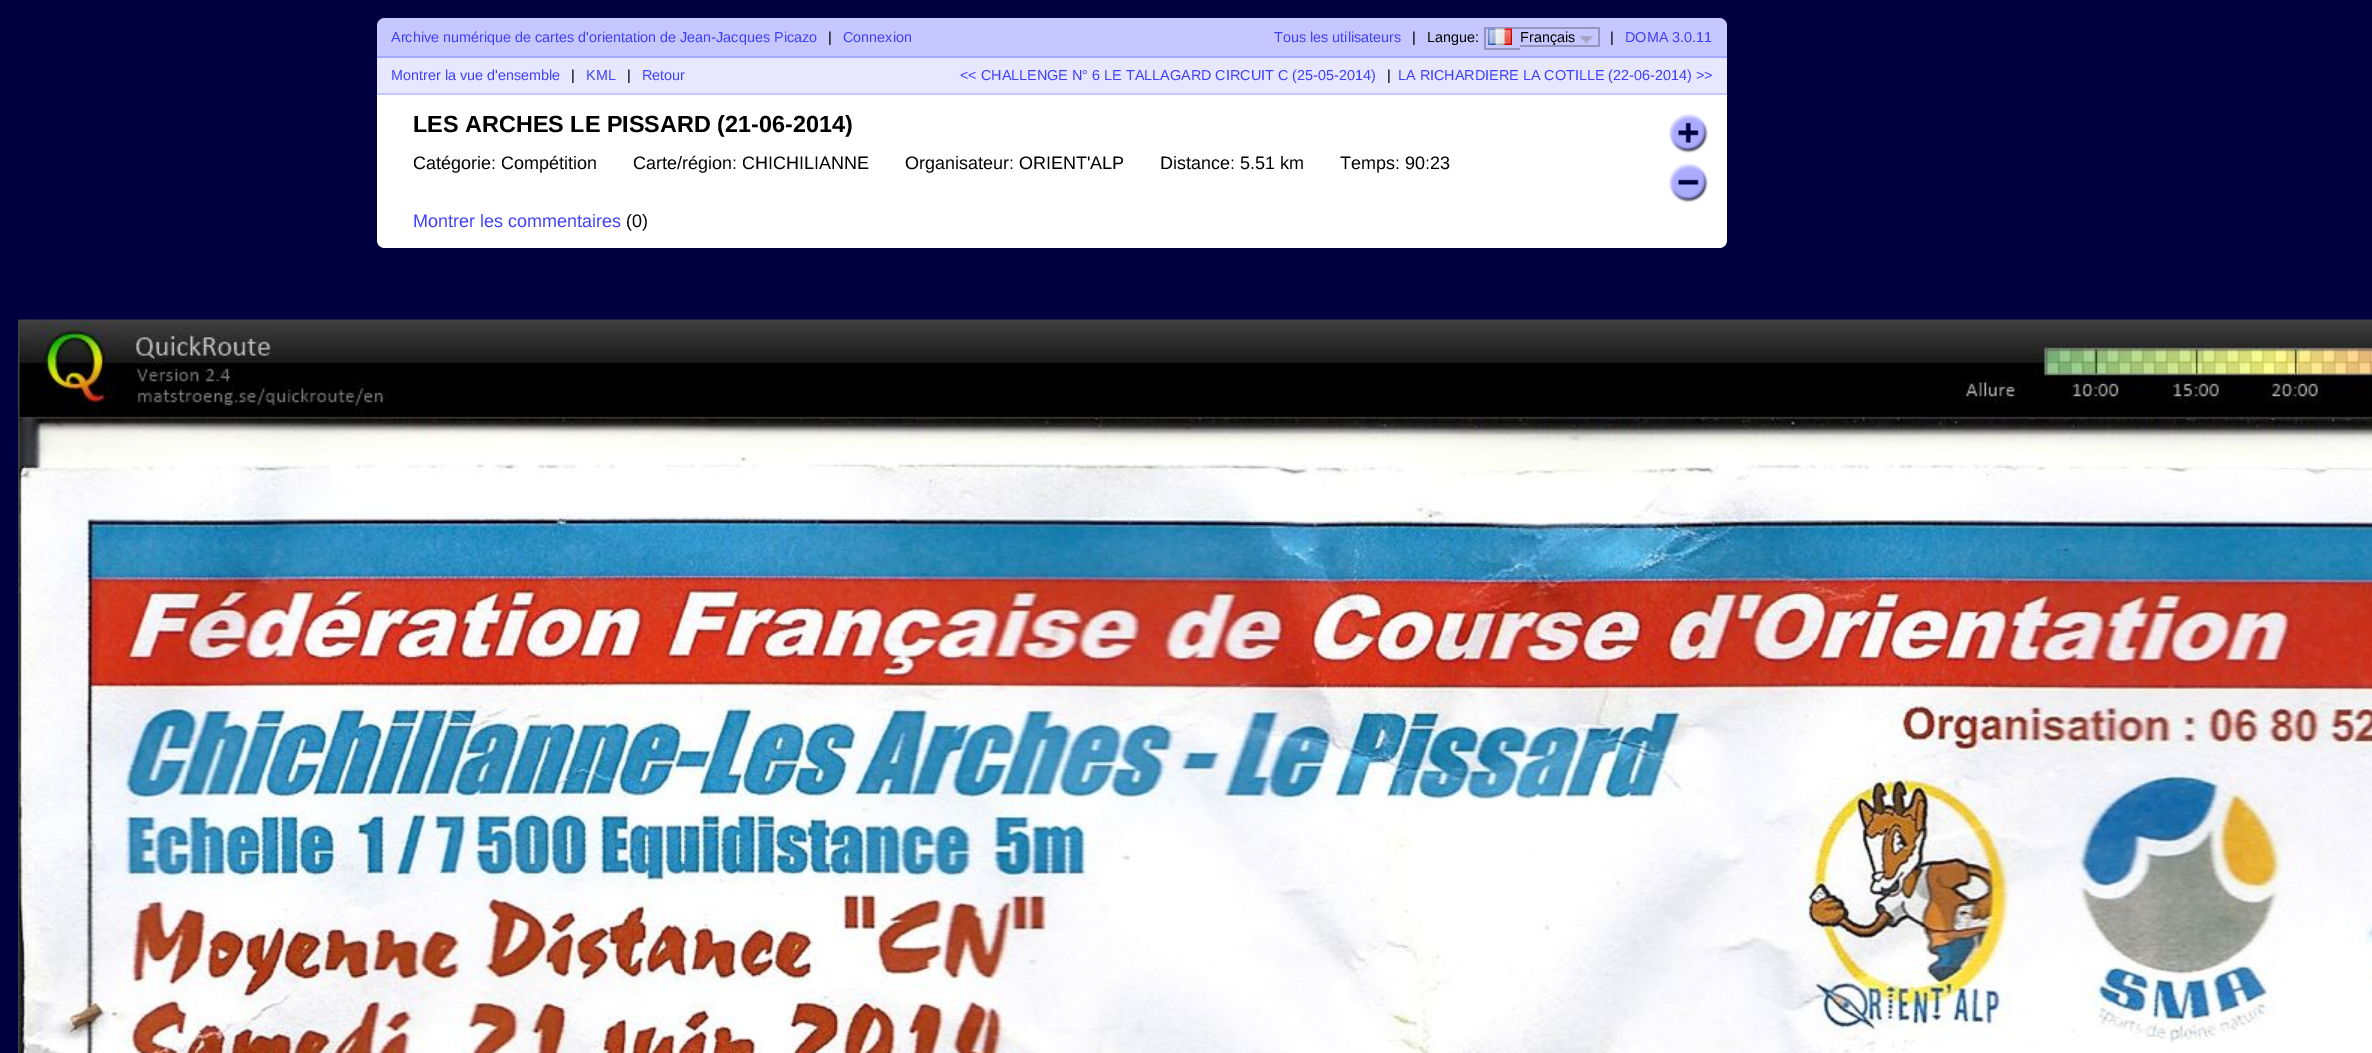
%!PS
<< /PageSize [2372 1053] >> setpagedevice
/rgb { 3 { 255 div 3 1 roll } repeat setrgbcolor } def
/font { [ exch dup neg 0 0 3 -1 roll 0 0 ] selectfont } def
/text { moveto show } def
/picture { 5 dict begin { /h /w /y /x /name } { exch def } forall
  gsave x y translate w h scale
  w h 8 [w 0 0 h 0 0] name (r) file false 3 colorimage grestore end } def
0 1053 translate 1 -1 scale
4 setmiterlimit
0 0 64 rgb
0 0 2372 1053 rectfill
199 199 255 rgb
385 18 moveto 1334 0 rlineto 4.5 0 8 3.5 8 8 rcurveto 0 30 rlineto -1350 0 rlineto 0 -30 rlineto 0 -4.5 3.5 -8 8 -8 rcurveto closepath fill
149 149 191 rgb
1484 27 115 2 rectfill
(img_01.rgb) 1488 28 24 17 picture
1484 48 36 2 rectfill
1484 27 2 23 rectfill
1598 27 2 20 rectfill
1520 45 79 2 rectfill
(img_02.rgb) 1579 35 15 9 picture
231 231 255 rgb
377 58 1350 35 rectfill
167 167 255 rgb
377 56 1350 2 rectfill
199 199 255 rgb
377 93 1350 2 rectfill
255 255 255 rgb
377 95 moveto 1350 0 rlineto 0 145 rlineto 0 4.5 -3.5 8 -8 8 rcurveto -1334 0 rlineto -4.5 0 -8 -3.5 -8 -8 rcurveto closepath fill
(img_03.rgb) 1669 113 39 40 picture
(img_04.rgb) 1669 163 39 40 picture
(img_05.rgb) 18 319 2354 734 picture
/LiberationSans-Regular 14.4 font
63 63 255 rgb
(Archive numérique de cartes d'orientation de Jean-Jacques Picazo) 391 42 text
0 0 0 rgb
(|) 828 42 text
63 63 255 rgb
(Connexion) 843 42 text
(Tous les utilisateurs) 1274 42 text
0 0 0 rgb
(|) 1412 42 text
(Langue:) 1427 42 text
(Français) 1520 42 text
(|) 1610 42 text
63 63 255 rgb
(DOMA 3.0.11) 1625 42 text
(Montrer la vue d'ensemble) 391 80 text
0 0 0 rgb
(|) 571 80 text
63 63 255 rgb
(KML) 586 80 text
0 0 0 rgb
(|) 627 80 text
63 63 255 rgb
(Retour) 642 80 text
(<< CHALLENGE N° 6 LE TALLAGARD CIRCUIT C \(25-05-2014\)) 960 80 text
0 0 0 rgb
(|) 1387 80 text
63 63 255 rgb
(LA RICHARDIERE LA COTILLE \(22-06-2014\) >>) 1398 80 text
/LiberationSans-Bold 23.4 font
0 0 0 rgb
(LES ARCHES LE PISSARD \(21-06-2014\)) 413 132 text
/LiberationSans-Regular 18 font
(Catégorie: Compétition) 413 169 text
(Carte/région: CHICHILIANNE) 633 169 text
(Organisateur: ORIENT'ALP) 905 169 text
(Distance: 5.51 km) 1160 169 text
(Temps: 90:23) 1340 169 text
63 63 255 rgb
(Montrer les commentaires) 413 227 text
0 0 0 rgb
(\(0\)) 626 227 text
showpage
